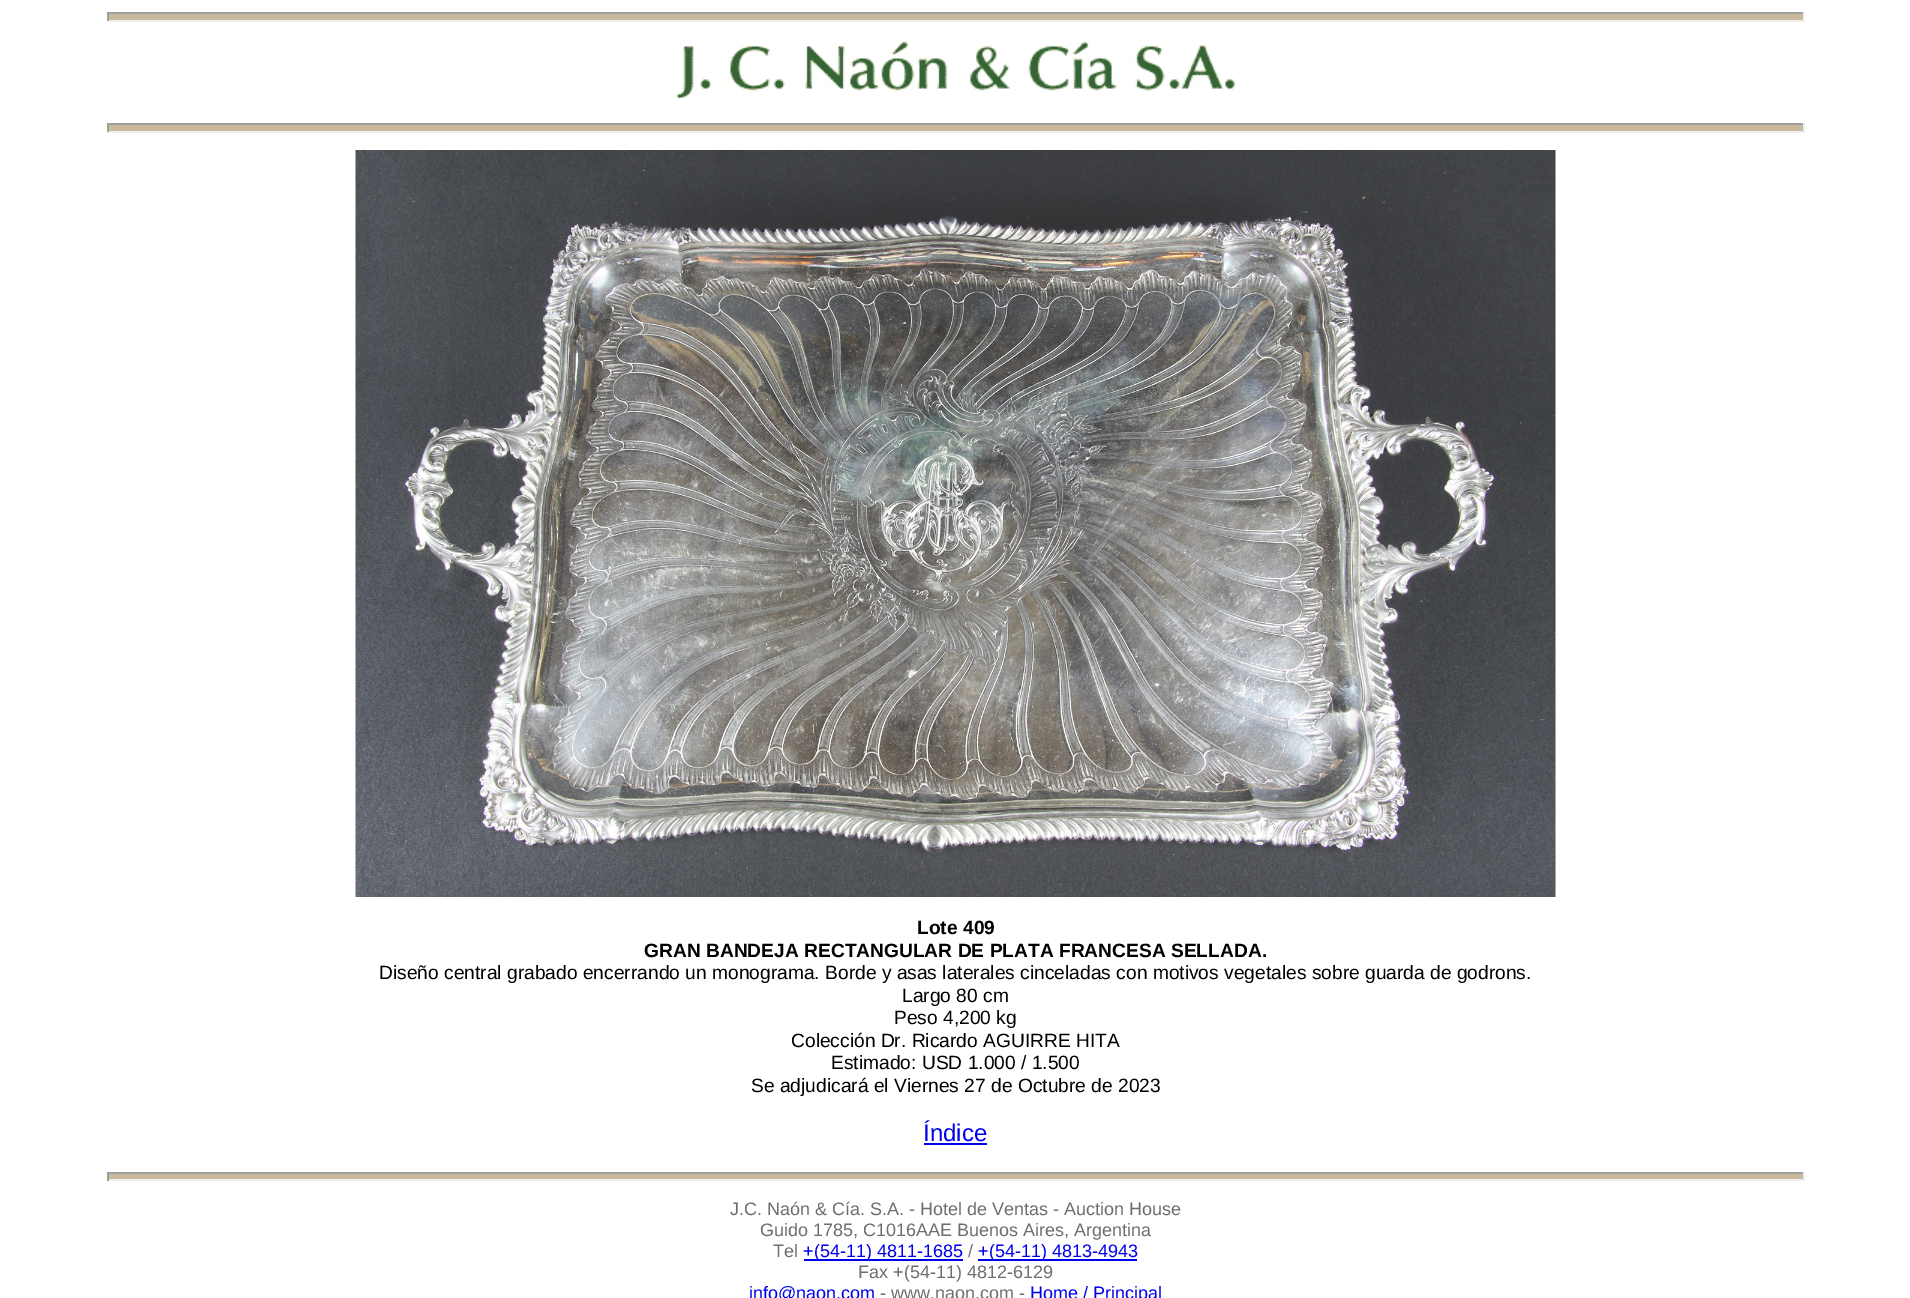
%!PS
<< /PageSize [1910 1298] >> setpagedevice
/rgb { 3 { 255 div 3 1 roll } repeat setrgbcolor } def
/font { [ exch dup neg 0 0 3 -1 roll 0 0 ] selectfont } def
/text { moveto show } def
/picture { 5 dict begin { /h /w /y /x /name } { exch def } forall
  gsave x y translate w h scale
  w h 8 [w 0 0 h 0 0] name (r) file false 3 colorimage grestore end } def
0 1298 translate 1 -1 scale
4 setmiterlimit
255 255 255 rgb
0 0 1910 1298 rectfill
203 185 156 rgb
109 14 1694 6 rectfill
159 159 159 rgb
107 12 1698 2 rectfill
238 238 238 rgb
1803 12 2 9 rectfill
107 20 1698 2 rectfill
159 159 159 rgb
107 12 2 9 rectfill
(img_01.rgb) 675 41 561 59 picture
203 185 156 rgb
109 125 1694 6 rectfill
159 159 159 rgb
107 123 1698 2 rectfill
238 238 238 rgb
1803 123 2 9 rectfill
107 131 1698 2 rectfill
159 159 159 rgb
107 123 2 9 rectfill
(img_02.rgb) 355 150 1201 747 picture
0 0 238 rgb
924 1143 63 2 rectfill
203 185 156 rgb
109 1174 1694 5 rectfill
159 159 159 rgb
107 1172 1698 2 rectfill
238 238 238 rgb
1803 1172 2 9 rectfill
107 1179 1698 2 rectfill
159 159 159 rgb
107 1172 2 9 rectfill
0 0 238 rgb
804 1259 159 2 rectfill
978 1259 159 2 rectfill
/LiberationSans-Bold 19.2 font
0 0 0 rgb
(Lote 409) 917 934 text
(GRAN BANDEJA RECTANGULAR DE PLATA FRANCESA SELLADA.) 644 957 text
/LiberationSans-Regular 19.2 font
(Diseño central grabado encerrando un monograma. Borde y asas laterales cinceladas con motivos vegetales sobre guarda de godrons.) 379 979 text
(Largo 80 cm) 902 1002 text
(Peso 4,200 kg) 894 1024 text
(Colección Dr. Ricardo AGUIRRE HITA) 791 1047 text
(Estimado: USD 1.000 / 1.500) 831 1069 text
(Se adjudicará el Viernes 27 de Octubre de 2023) 751 1092 text
/LiberationSans-Regular 24 font
0 0 238 rgb
(Índice) 923 1141 text
/LiberationSans-Regular 18 font
110 110 110 rgb
(J.C. Naón & Cía. S.A. - Hotel de Ventas - Auction House) 730 1215 text
(Guido 1785, C1016AAE Buenos Aires, Argentina) 760 1236 text
(Tel) 773 1257 text
0 0 238 rgb
(+\(54-11\) 4811-1685) 803 1257 text
110 110 110 rgb
(/) 968 1257 text
0 0 238 rgb
(+\(54-11\) 4813-4943) 978 1257 text
110 110 110 rgb
(Fax +\(54-11\) 4812-6129) 858 1278 text
0 0 238 rgb
(info@naon.com) 749 1299 text
110 110 110 rgb
(- www.naon.com -) 880 1299 text
0 0 238 rgb
(Home / Principal) 1030 1299 text
showpage
